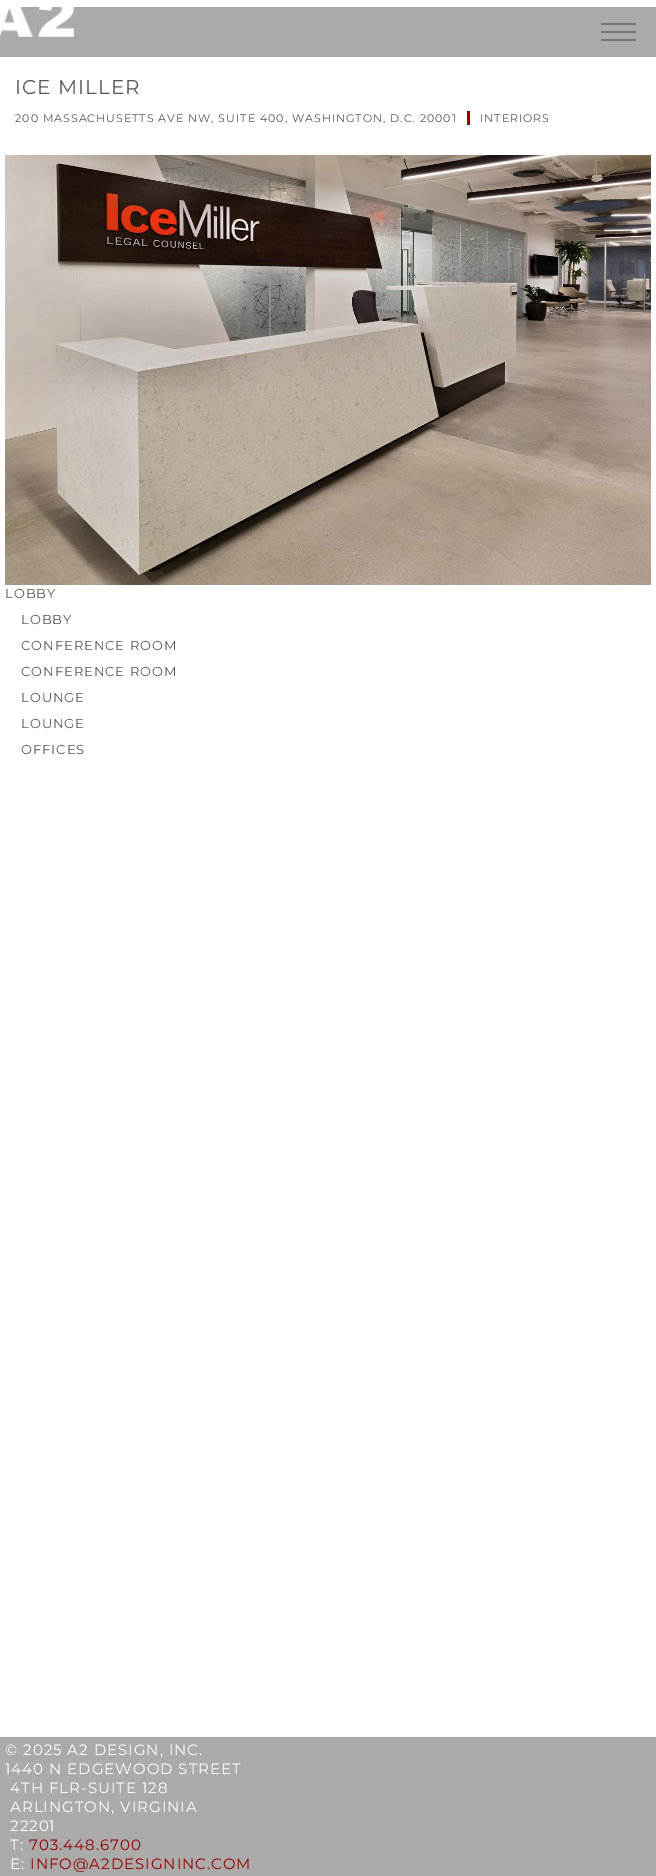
%!PS
<< /PageSize [656 1876] >> setpagedevice
/rgb { 3 { 255 div 3 1 roll } repeat setrgbcolor } def
/font { [ exch dup neg 0 0 3 -1 roll 0 0 ] selectfont } def
/picture { 5 dict begin { /h /w /y /x /name } { exch def } forall
  gsave x y translate w h scale
  w h 8 [w 0 0 h 0 0] name (r) file false 3 colorimage grestore end } def
0 1876 translate 1 -1 scale
4 setmiterlimit
255 255 255 rgb
0 0 656 1876 rectfill
170 170 170 rgb
0 7 656 50 rectfill
(img_01.rgb) 0 7 74 30 picture
119 119 119 rgb
601 23 35 2 rectfill
601 31 35 2 rectfill
601 39 35 2 rectfill
153 0 0 rgb
467 111 3 14 rectfill
(img_02.rgb) 5 155 646 430 picture
170 170 170 rgb
0 1737 656 139 rectfill
/Montserrat-Regular 20 font
85 85 85 rgb
15 94 moveto 1 0 (ICE MILLER) ashow
/Montserrat-Regular 11 font
15 122 moveto 1 0 (200 MASSACHUSETTS AVE NW, SUITE 400, WASHINGTON, D.C. 20001) ashow
480 122 moveto 1 0 (INTERIORS) ashow
/Montserrat-Regular 13 font
5 598 moveto 1 0 (LOBBY) ashow
21 624 moveto 1 0 (LOBBY) ashow
21 650 moveto 1 0 (CONFERENCE ROOM) ashow
21 676 moveto 1 0 (CONFERENCE ROOM) ashow
21 702 moveto 1 0 (LOUNGE) ashow
21 728 moveto 1 0 (LOUNGE) ashow
21 754 moveto 1 0 (OFFICES) ashow
/Montserrat-Regular 15 font
255 255 255 rgb
5 1755 moveto 1 0 (© 2025 A2 DESIGN, INC.) ashow
5 1774 moveto 1 0 (1440 N EDGEWOOD STREET) ashow
10 1793 moveto 1 0 (4TH FLR-SUITE 128) ashow
10 1812 moveto 1 0 (ARLINGTON, VIRGINIA) ashow
10 1831 moveto 1 0 (22201) ashow
10 1850 moveto 1 0 (T:) ashow
153 0 0 rgb
29 1850 moveto 1 0 (703.448.6700) ashow
255 255 255 rgb
10 1869 moveto 1 0 (E:) ashow
153 0 0 rgb
30 1869 moveto 1 0 (INFO@A2DESIGNINC.COM) ashow
showpage
